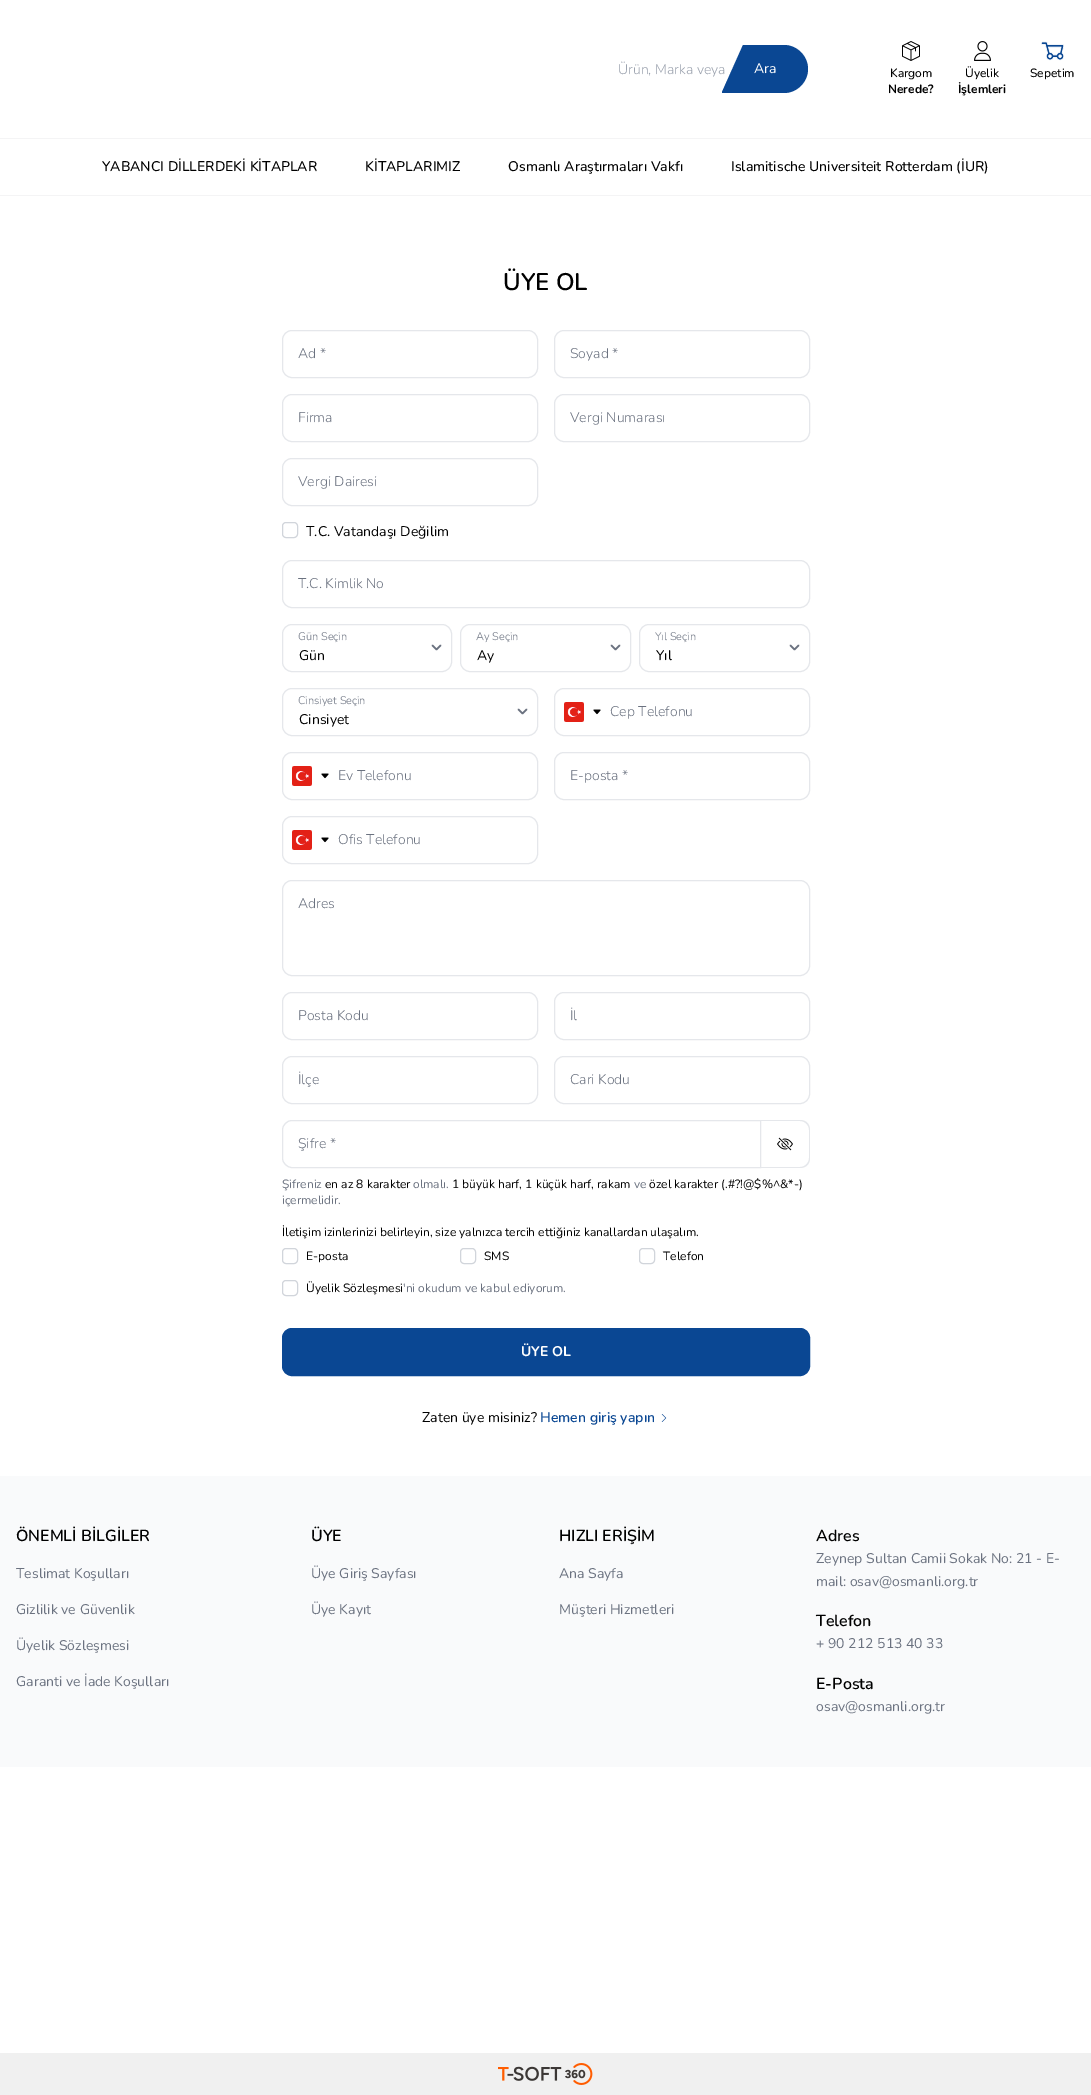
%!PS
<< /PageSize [1091 2095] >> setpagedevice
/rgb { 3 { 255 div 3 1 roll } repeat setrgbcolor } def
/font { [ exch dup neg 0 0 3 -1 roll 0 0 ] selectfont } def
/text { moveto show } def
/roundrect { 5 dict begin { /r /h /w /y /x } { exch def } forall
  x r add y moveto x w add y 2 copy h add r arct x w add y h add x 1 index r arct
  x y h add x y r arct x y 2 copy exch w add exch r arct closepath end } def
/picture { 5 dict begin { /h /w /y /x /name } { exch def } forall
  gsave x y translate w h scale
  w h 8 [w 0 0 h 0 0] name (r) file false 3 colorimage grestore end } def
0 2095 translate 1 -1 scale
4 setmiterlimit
255 255 255 rgb
0 0 1091 2095 rectfill
(img_01.rgb) 902 41 18 20 picture
(img_02.rgb) 974 41 17 20 picture
(img_03.rgb) 1041 41 23 20 picture
244 244 245 rgb
0 138 1091 1 rectfill
0 195 1091 1 rectfill
229 231 235 rgb
282.5 330.5 255 47 9.5 roundrect stroke
554.5 330.5 255 47 9.5 roundrect stroke
282.5 394.5 255 47 9.5 roundrect stroke
554.5 394.5 255 47 9.5 roundrect stroke
282.5 458.5 255 47 9.5 roundrect stroke
209 213 219 rgb
282.5 522.5 15 15 3.5 roundrect stroke
229 231 235 rgb
282.5 560.5 527 47 9.5 roundrect stroke
107 114 128 rgb
1.6 setlinewidth
1 setlinecap
1 setlinejoin
432.5 645.5 moveto 4 4 rlineto 4 -4 rlineto stroke
229 231 235 rgb
1 setlinewidth
0 setlinecap
0 setlinejoin
282.5 624.5 169 47 9.5 roundrect stroke
107 114 128 rgb
1.6 setlinewidth
1 setlinecap
1 setlinejoin
611.5 645.5 moveto 4 4 rlineto 4 -4 rlineto stroke
229 231 235 rgb
1 setlinewidth
0 setlinecap
0 setlinejoin
460.5 624.5 170 47 9.5 roundrect stroke
107 114 128 rgb
1.6 setlinewidth
1 setlinecap
1 setlinejoin
790.5 645.5 moveto 4 4 rlineto 4 -4 rlineto stroke
229 231 235 rgb
1 setlinewidth
0 setlinecap
0 setlinejoin
639.5 624.5 170 47 9.5 roundrect stroke
107 114 128 rgb
1.6 setlinewidth
1 setlinecap
1 setlinejoin
518.5 709.5 moveto 4 4 rlineto 4 -4 rlineto stroke
229 231 235 rgb
1 setlinewidth
0 setlinecap
0 setlinejoin
282.5 688.5 255 47 9.5 roundrect stroke
554.5 688.5 255 47 9.5 roundrect stroke
(img_04.rgb) 593 709 8 6 picture
(img_05.rgb) 564 702 20 20 picture
282.5 752.5 255 47 9.5 roundrect stroke
(img_04.rgb) 321 773 8 6 picture
(img_05.rgb) 292 766 20 20 picture
554.5 752.5 255 47 9.5 roundrect stroke
282.5 816.5 255 47 9.5 roundrect stroke
(img_04.rgb) 321 837 8 6 picture
(img_05.rgb) 292 830 20 20 picture
282.5 880.5 527 95 9.5 roundrect stroke
282.5 992.5 255 47 9.5 roundrect stroke
554.5 992.5 255 47 9.5 roundrect stroke
282.5 1056.5 255 47 9.5 roundrect stroke
554.5 1056.5 255 47 9.5 roundrect stroke
292 1120.5 moveto 468.5 0 rlineto 0 47 rlineto -468.5 0 rlineto -5 0 -9.5 -4.5 -9.5 -9.5 rcurveto 0 -28 rlineto 0 -5 4.5 -9.5 9.5 -9.5 rcurveto closepath stroke
761 1120 moveto 39 0 rlineto 6 0 10 4 10 10 rcurveto 0 28 rlineto 0 6 -4 10 -10 10 rcurveto -39 0 rlineto closepath 761 1121 moveto 39 0 rlineto 5 0 9 4 9 9 rcurveto 0 28 rlineto 0 5 -4 9 -9 9 rcurveto -39 0 rlineto closepath eofill
(img_06.rgb) 777 1137 16 14 picture
209 213 219 rgb
282.5 1248.5 15 15 3.5 roundrect stroke
460.5 1248.5 15 15 3.5 roundrect stroke
639.5 1248.5 15 15 3.5 roundrect stroke
282.5 1280.5 15 15 3.5 roundrect stroke
10 71 147 rgb
282.5 1328.5 527 47 9.5 roundrect gsave fill grestore
stroke
(img_07.rgb) 661 1414 6 8 picture
249 250 251 rgb
0 1476 1091 291 rectfill
240 240 240 rgb
0 2053 1091 42 rectfill
(img_08.rgb) 498 2063 95 22 picture
/Nunito-Light 14 font
156 163 175 rgb
(Ürün, Marka veya) 618 74 text
10 71 147 rgb
743 45 moveto -21 47 rlineto 0 1 rlineto 62 0 rlineto 13 0 24 -11 24 -24 rcurveto 0 -13 -11 -24 -24 -24 rcurveto closepath fill
/Nunito-Regular 14 font
255 255 255 rgb
(Ara) 754 73 text
/Nunito-Medium 12 font
0 0 0 rgb
(Kargom) 890 77 text
/Nunito-Bold 12 font
(Nerede?) 888 93 text
/Nunito-Medium 12 font
(Üyelik) 965 77 text
/Nunito-Bold 12 font
(İşlemleri) 958 93 text
/Nunito-Medium 12 font
(Sepetim) 1030 77 text
/Nunito-Medium 14 font
(YABANCI DİLLERDEKİ KİTAPLAR) 102 171 text
(KİTAPLARIMIZ) 365 171 text
(Osmanlı Araştırmaları Vakfı) 508 171 text
(Islamitische Universiteit Rotterdam \(İUR\)) 731 171 text
/Nunito-SemiBold 24 font
(ÜYE OL) 503 290 text
/Nunito-Light 14 font
107 114 128 rgb
(Ad *) 298 358 text
(Soyad *) 570 358 text
(Firma) 298 422 text
(Vergi Numarası) 570 422 text
(Vergi Dairesi) 298 486 text
/Nunito-Regular 14 font
0 0 0 rgb
(T.C. Vatandaşı Değilim) 306 536 text
/Nunito-Light 14 font
107 114 128 rgb
(T.C. Kimlik No) 298 588 text
/Nunito-Light 11 font
(Gün Seçin) 298 640 text
/Nunito-Regular 14 font
0 0 0 rgb
(Gün) 299 660 text
/Nunito-Light 11 font
107 114 128 rgb
(Ay Seçin) 476 640 text
/Nunito-Regular 14 font
0 0 0 rgb
(Ay) 477 660 text
/Nunito-Light 11 font
107 114 128 rgb
(Yıl Seçin) 655 640 text
/Nunito-Regular 14 font
0 0 0 rgb
(Yıl) 656 660 text
/Nunito-Light 11 font
107 114 128 rgb
(Cinsiyet Seçin) 298 704 text
/Nunito-Regular 14 font
0 0 0 rgb
(Cinsiyet) 299 724 text
/Nunito-Light 14 font
107 114 128 rgb
(Cep Telefonu) 610 716 text
(Ev Telefonu) 338 780 text
(E-posta *) 570 780 text
(Ofis Telefonu) 338 844 text
(Adres) 298 908 text
(Posta Kodu) 298 1020 text
(İl) 570 1020 text
(İlçe) 298 1084 text
(Cari Kodu) 570 1084 text
(Şifre *) 298 1148 text
/Nunito-Regular 12 font
(Şifreniz) 282 1188 text
0 0 0 rgb
(en az 8 karakter) 325 1188 text
107 114 128 rgb
(olmalı.) 413 1188 text
0 0 0 rgb
(1 büyük harf, 1 küçük harf, rakam) 452 1188 text
107 114 128 rgb
(ve) 634 1188 text
0 0 0 rgb
(özel karakter \(.#?!@$%^&*-\)) 649 1188 text
107 114 128 rgb
(içermelidir.) 282 1204 text
0 0 0 rgb
(İletişim izinlerinizi belirleyin, size yalnızca tercih ettiğiniz kanallardan ulaşalım.) 282 1236 text
(E-posta) 306 1260 text
(SMS) 484 1260 text
(Telefon) 663 1260 text
(Üyelik Sözleşmesi) 306 1292 text
107 114 128 rgb
('ni okudum ve kabul ediyorum.) 403 1292 text
/Nunito-Bold 14 font
255 255 255 rgb
(ÜYE OL) 521 1356 text
/Nunito-Regular 14 font
0 0 0 rgb
(Zaten üye misiniz?) 422 1422 text
/Nunito-SemiBold 14 font
10 71 147 rgb
(Hemen giriş yapın) 540 1422 text
/Nunito-SemiBold 16 font
0 0 0 rgb
(ÖNEMLİ BİLGİLER) 16 1541 text
/Nunito-Regular 14 font
107 114 128 rgb
(Teslimat Koşulları) 16 1578 text
(Gizlilik ve Güvenlik) 16 1614 text
(Üyelik Sözleşmesi) 16 1650 text
(Garanti ve İade Koşulları) 16 1686 text
/Nunito-SemiBold 16 font
0 0 0 rgb
(ÜYE) 311 1541 text
/Nunito-Regular 14 font
107 114 128 rgb
(Üye Giriş Sayfası) 311 1578 text
(Üye Kayıt) 311 1614 text
/Nunito-SemiBold 16 font
0 0 0 rgb
(HIZLI ERİŞİM) 559 1541 text
/Nunito-Regular 14 font
107 114 128 rgb
(Ana Sayfa) 559 1578 text
(Müşteri Hizmetleri) 559 1614 text
/Nunito-SemiBold 16 font
0 0 0 rgb
(Adres) 816 1541 text
/Nunito-Regular 14 font
107 114 128 rgb
(Zeynep Sultan Camii Sokak No: 21 - E-) 816 1563 text
(mail: osav@osmanli.org.tr) 816 1586 text
/Nunito-SemiBold 16 font
0 0 0 rgb
(Telefon) 816 1626 text
/Nunito-Regular 14 font
107 114 128 rgb
(+ 90 212 513 40 33) 816 1648 text
/Nunito-SemiBold 16 font
0 0 0 rgb
(E-Posta) 816 1689 text
/Nunito-Regular 14 font
107 114 128 rgb
(osav@osmanli.org.tr) 816 1711 text
showpage
